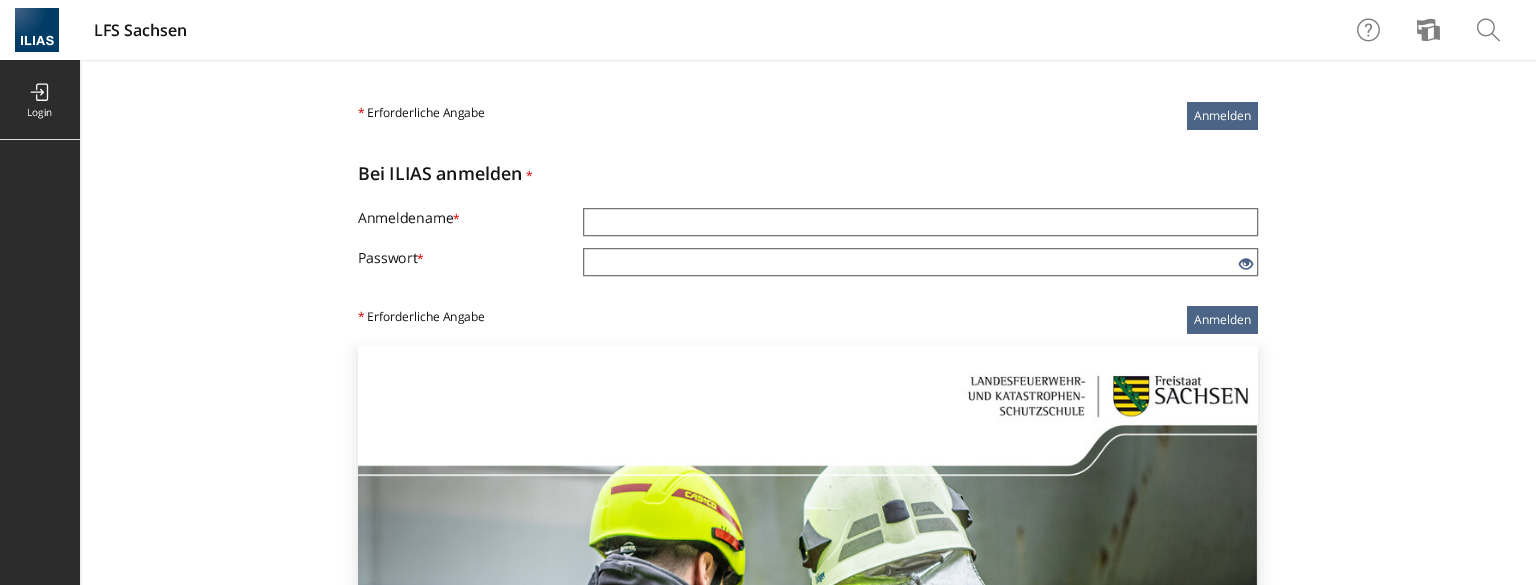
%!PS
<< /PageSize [1536 585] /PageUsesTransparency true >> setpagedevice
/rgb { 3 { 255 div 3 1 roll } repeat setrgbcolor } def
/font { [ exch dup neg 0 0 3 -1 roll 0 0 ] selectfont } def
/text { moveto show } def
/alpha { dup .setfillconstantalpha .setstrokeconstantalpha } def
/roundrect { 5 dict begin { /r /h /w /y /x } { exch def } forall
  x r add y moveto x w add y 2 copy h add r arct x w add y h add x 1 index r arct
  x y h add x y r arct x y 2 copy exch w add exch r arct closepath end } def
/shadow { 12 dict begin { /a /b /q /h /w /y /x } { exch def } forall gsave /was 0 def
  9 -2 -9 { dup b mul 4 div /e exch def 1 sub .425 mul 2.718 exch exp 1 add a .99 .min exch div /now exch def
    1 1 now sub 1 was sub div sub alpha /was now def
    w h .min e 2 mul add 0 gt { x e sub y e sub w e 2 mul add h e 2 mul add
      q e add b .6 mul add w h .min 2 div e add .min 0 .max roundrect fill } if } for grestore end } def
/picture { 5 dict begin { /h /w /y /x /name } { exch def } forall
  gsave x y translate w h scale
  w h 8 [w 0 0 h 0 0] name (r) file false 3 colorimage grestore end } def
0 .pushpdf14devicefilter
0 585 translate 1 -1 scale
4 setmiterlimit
255 255 255 rgb
0 0 1536 585 rectfill
44 44 44 rgb
0 60 80 525 rectfill
gsave
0 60 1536 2 rectclip
0 0 0 rgb
0 1 1536 60 0 1 0.1 shadow
grestore
(img_01.rgb) 15 8 44 44 picture
(img_02.rgb) 1357 18 23 24 picture
(img_03.rgb) 1417 18 23 24 picture
(img_04.rgb) 1476 18 24 24 picture
gsave
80 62 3 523 rectclip
0 0 0 rgb
1 63 80 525 0 2 0.1 shadow
grestore
221 221 221 rgb
0 139 80 1 rectfill
(img_05.rgb) 30 83 19 18 picture
76 101 134 rgb
1187 102 71 28 rectfill
117 117 117 rgb
583.5 208.5 674 27 rectstroke
583.5 248.5 674 27 rectstroke
(img_06.rgb) 1238 258 16 12 picture
76 101 134 rgb
1187 306 71 28 rectfill
gsave
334 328 moveto 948 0 rlineto 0 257 rlineto -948 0 rlineto closepath 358 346 moveto 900 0 rlineto 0 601 rlineto -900 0 rlineto closepath eoclip newpath
0 0 0 rgb
358 352 900 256 0 7.5 0.12 shadow
grestore
(img_07.rgb) 358 373 900 212 picture
/OpenSans-SemiBold 16 font
22 22 22 rgb
(LFS Sachsen) 94 36 text
/OpenSans-Regular 10 font
255 255 255 rgb
(Login) 27 116 text
/OpenSans-Regular 12 font
221 0 0 rgb
(*) 358 117 text
22 22 22 rgb
(Erforderliche Angabe) 367 117 text
255 255 255 rgb
(Anmelden) 1194 120 text
/OpenSans-SemiBold 17.75 font
22 22 22 rgb
(Bei ILIAS anmelden) 358 180 text
/OpenSans-Regular 12 font
221 0 0 rgb
(*) 526 180 text
/OpenSans-Regular 14 font
22 22 22 rgb
(Anmeldename) 358 223 text
/OpenSans-Regular 12 font
221 0 0 rgb
(*) 453 223 text
/OpenSans-Regular 14 font
22 22 22 rgb
(Passwort) 358 263 text
/OpenSans-Regular 12 font
221 0 0 rgb
(*) 417 263 text
(*) 358 321 text
22 22 22 rgb
(Erforderliche Angabe) 367 321 text
255 255 255 rgb
(Anmelden) 1194 324 text
.poppdf14devicefilter showpage
